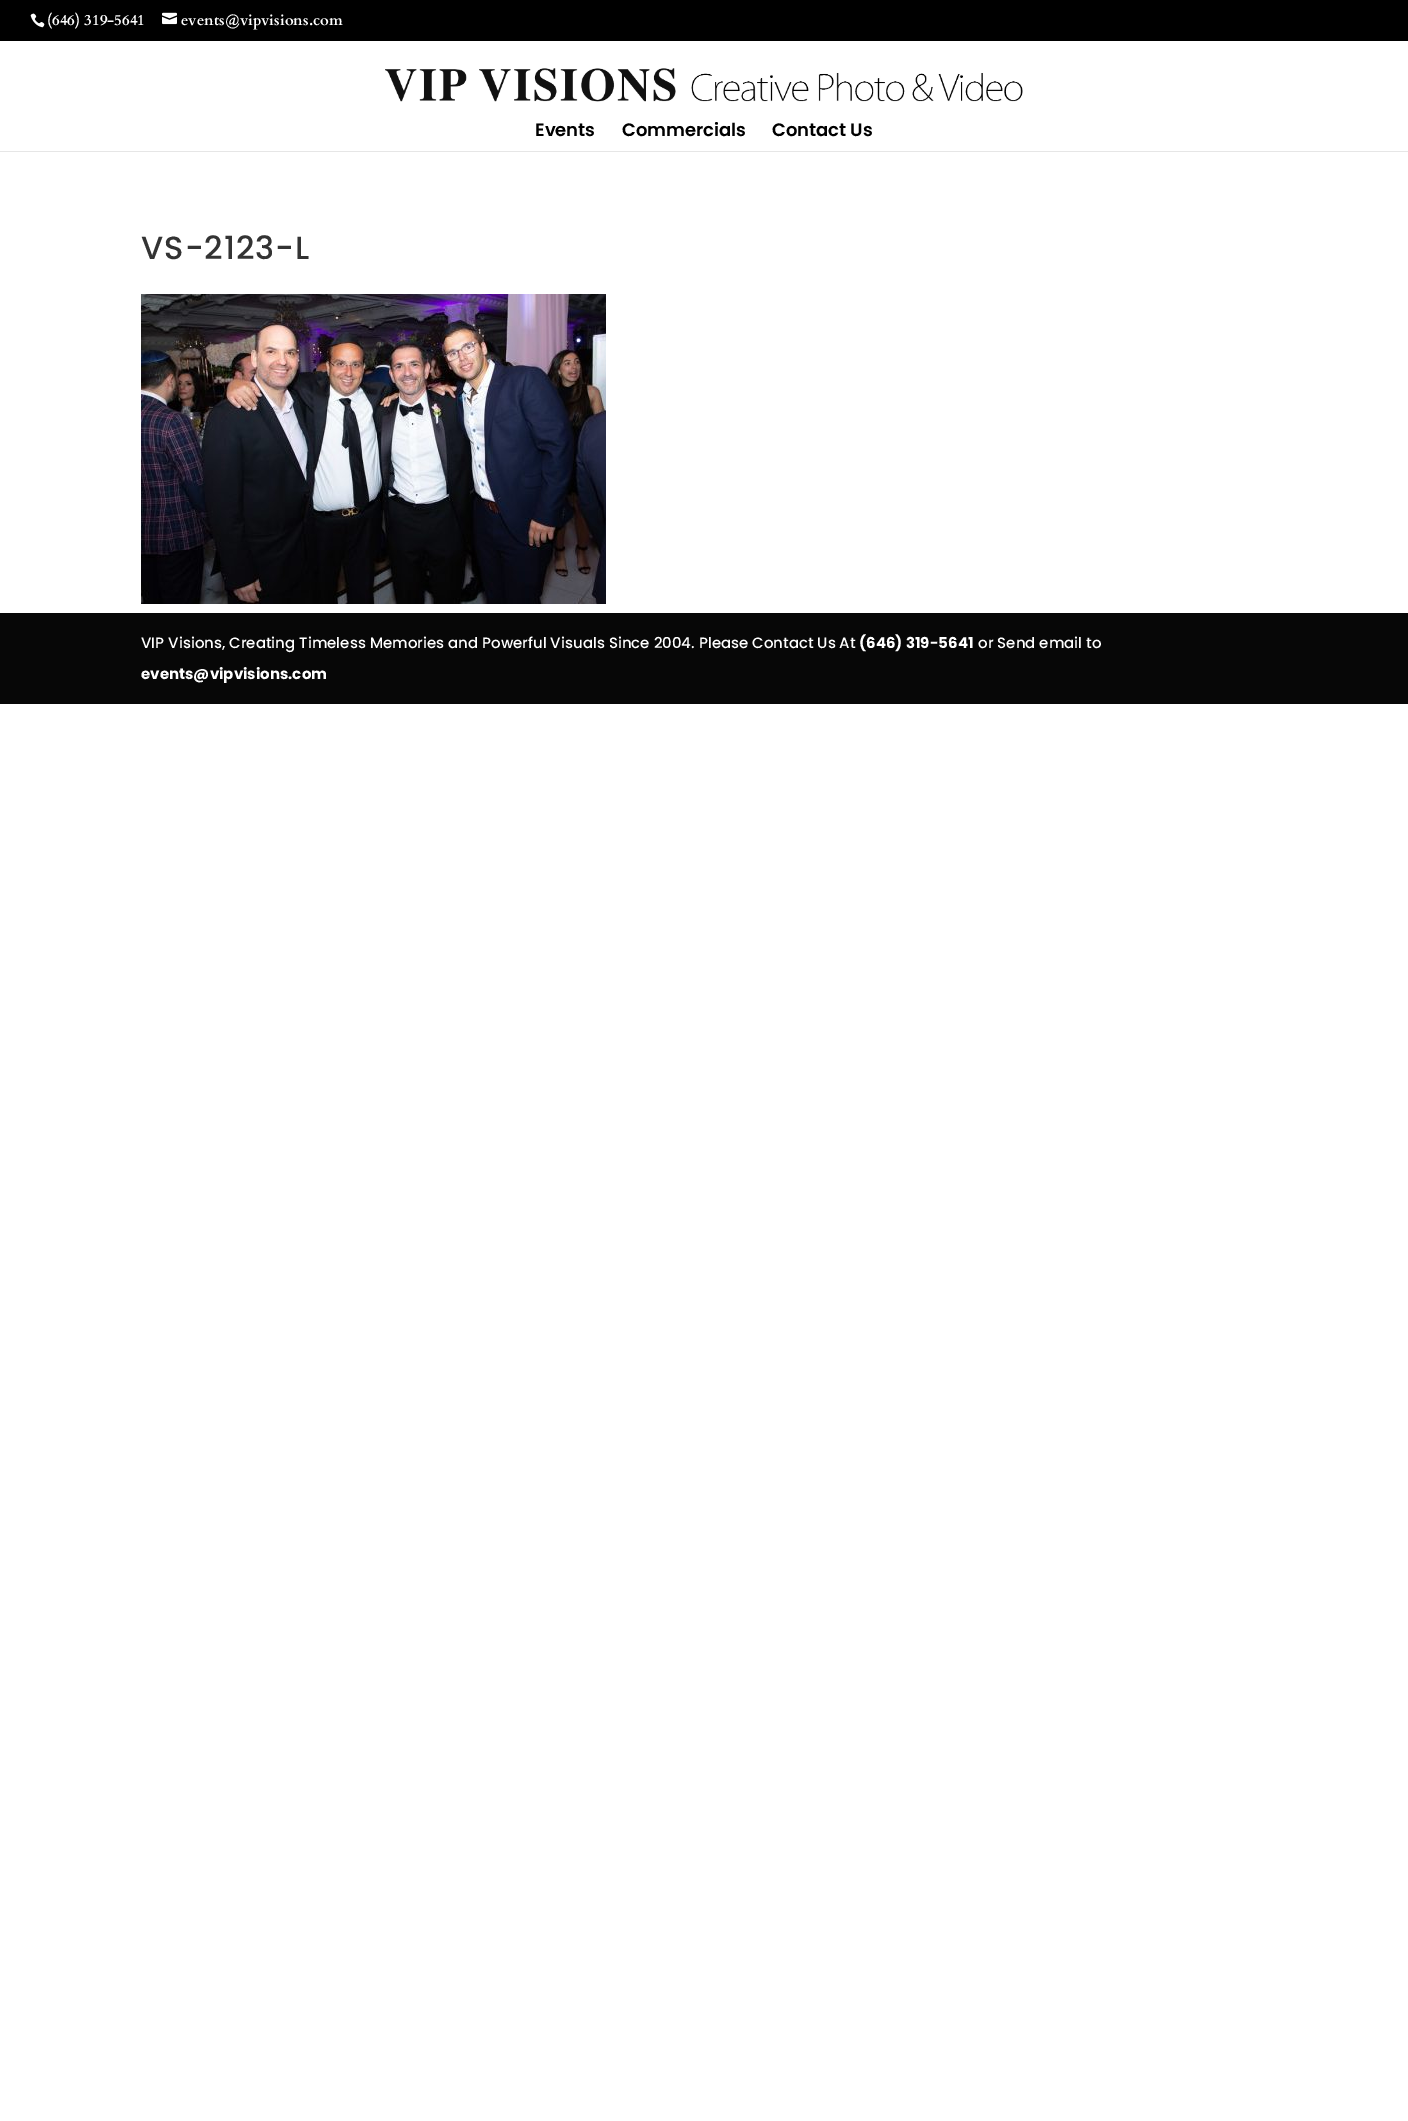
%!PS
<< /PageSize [1408 2121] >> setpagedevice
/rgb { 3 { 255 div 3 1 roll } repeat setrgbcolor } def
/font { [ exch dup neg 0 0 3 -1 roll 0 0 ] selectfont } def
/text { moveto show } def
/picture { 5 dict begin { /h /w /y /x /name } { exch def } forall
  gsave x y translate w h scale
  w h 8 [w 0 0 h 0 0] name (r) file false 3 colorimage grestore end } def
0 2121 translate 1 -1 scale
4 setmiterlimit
255 255 255 rgb
0 0 1408 2121 rectfill
0 0 0 rgb
0 0 1408 41 rectfill
(img_01.rgb) 30 13 15 15 picture
(img_02.rgb) 162 12 15 13 picture
230 230 230 rgb
0 151 1408 1 rectfill
(img_03.rgb) 385 68 638 34 picture
(img_04.rgb) 141 294 465 310 picture
7 7 7 rgb
0 613 1408 91 rectfill
/Cardo-Bold 15 font
255 255 255 rgb
(\(646\) 319-5641) 47 25 text
(events@vipvisions.com) 181 25 text
/Poppins-SemiBold 18 font
0 0 0 rgb
(Events) 535 136 text
(Commercials) 622 136 text
(Contact Us) 772 136 text
/Poppins-Medium 32 font
51 51 51 rgb
141 259 moveto 1 0 (VS-2123-L) ashow
/Poppins-Medium 15 font
255 255 255 rgb
(VIP Visions, Creating Timeless Memories and Powerful Visuals Since 2004. Please Contact Us At) 141 648 text
/Poppins-Bold 15 font
(\(646\) 319-5641) 859 648 text
/Poppins-Medium 15 font
(or Send email to) 978 648 text
/Poppins-Bold 15 font
(events@vipvisions.com) 141 679 text
showpage
